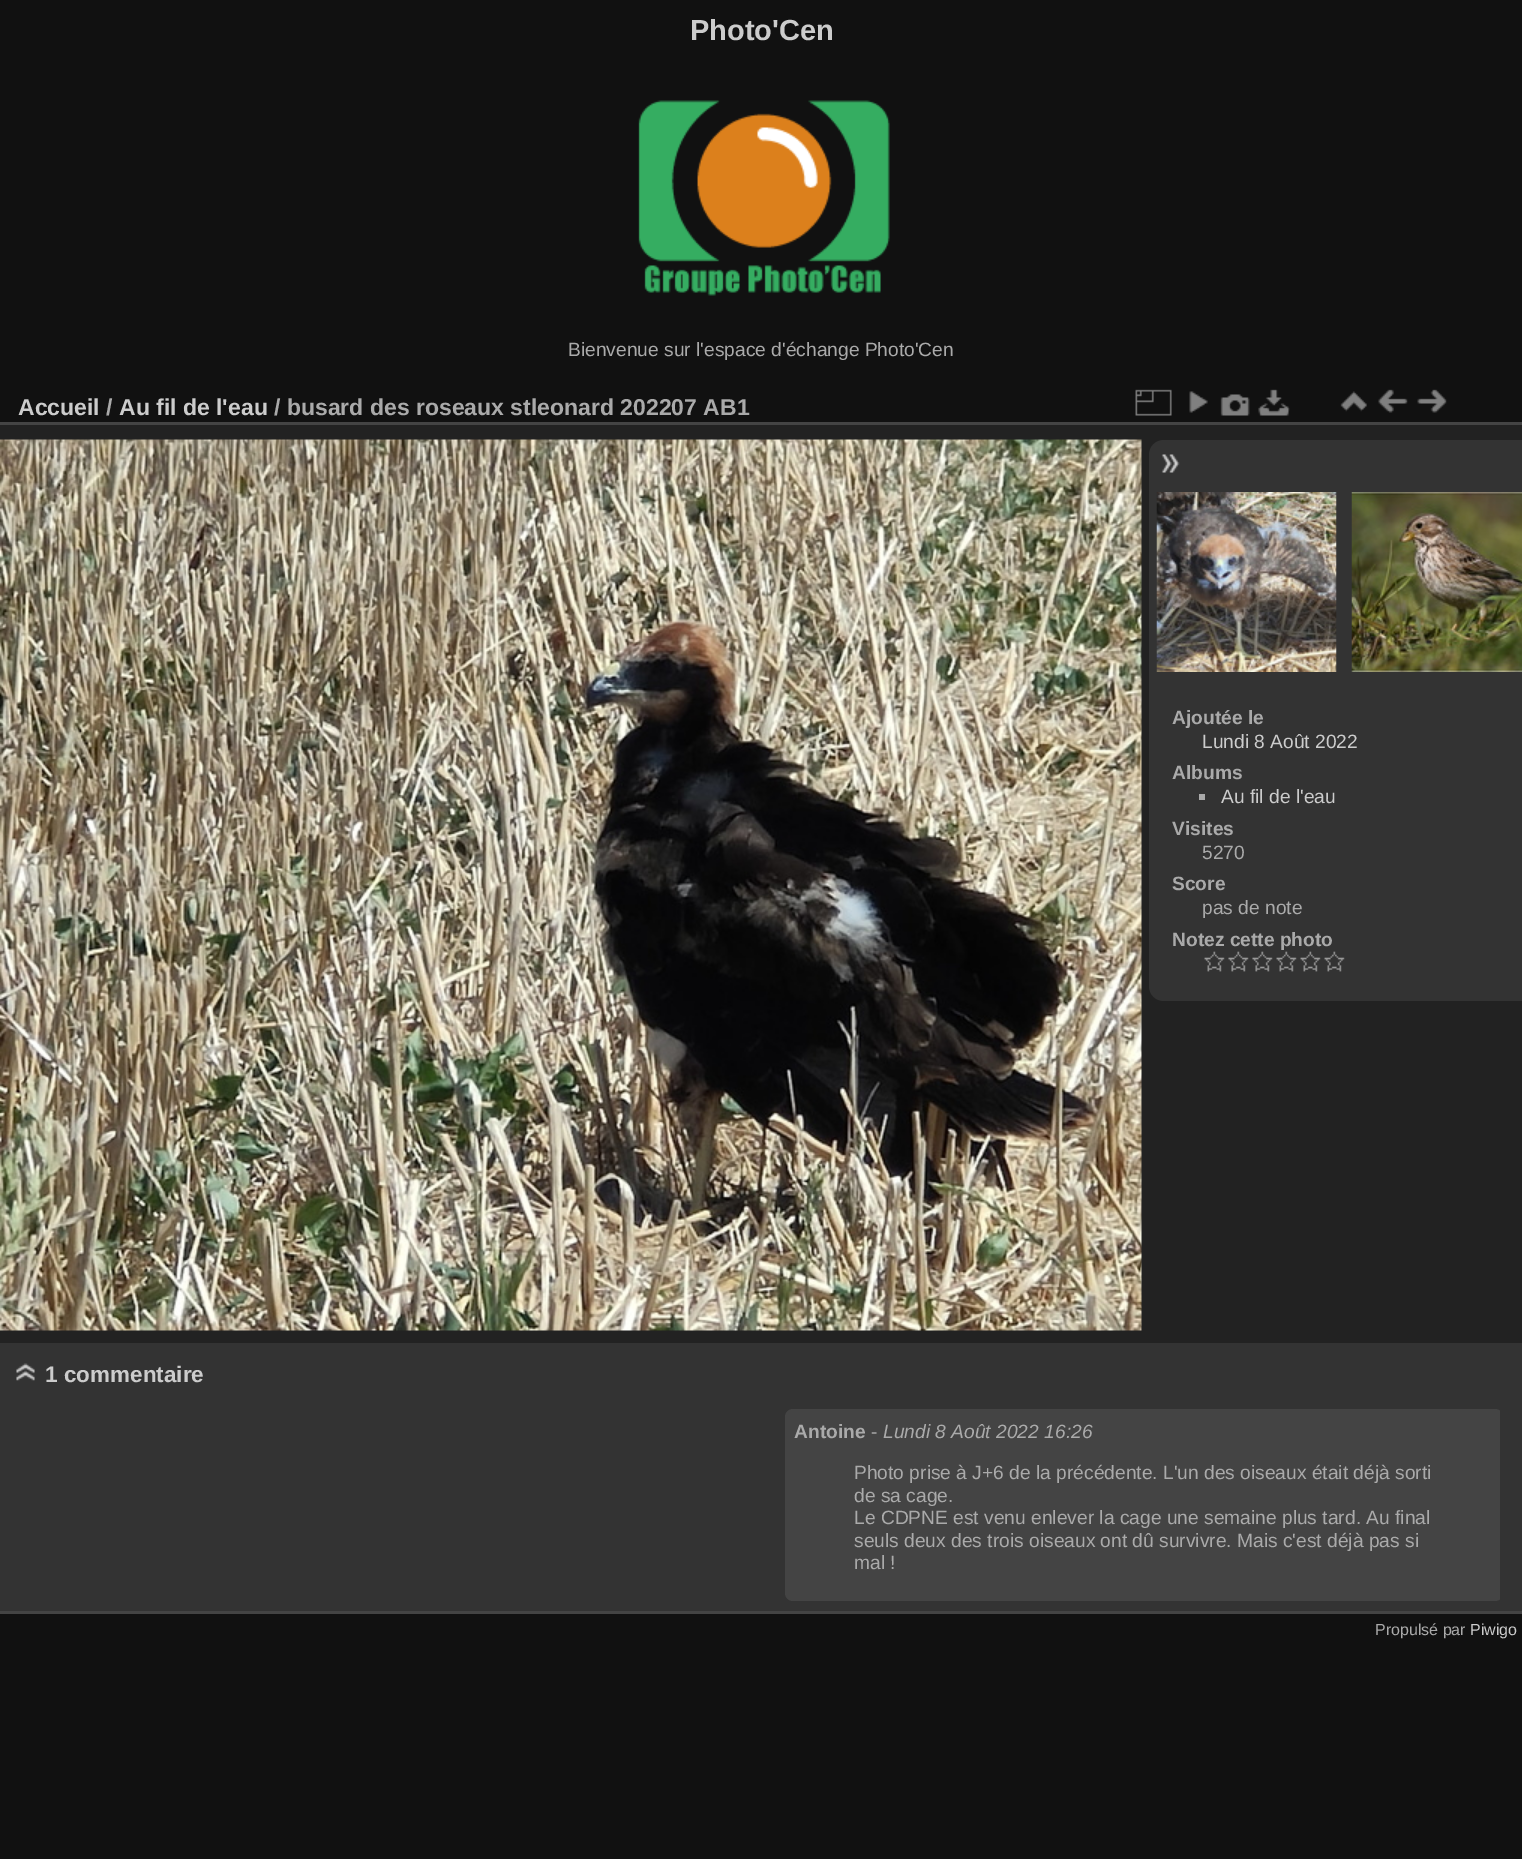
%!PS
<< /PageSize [1522 1859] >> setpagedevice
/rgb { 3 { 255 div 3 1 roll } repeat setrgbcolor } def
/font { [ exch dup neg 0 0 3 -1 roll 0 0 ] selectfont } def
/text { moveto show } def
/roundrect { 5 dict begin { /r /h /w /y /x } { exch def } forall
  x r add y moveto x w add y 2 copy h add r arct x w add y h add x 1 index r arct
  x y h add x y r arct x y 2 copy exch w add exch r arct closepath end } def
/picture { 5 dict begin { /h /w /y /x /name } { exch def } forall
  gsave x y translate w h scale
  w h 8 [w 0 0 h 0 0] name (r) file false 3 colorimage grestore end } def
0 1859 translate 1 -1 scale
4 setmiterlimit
17 17 17 rgb
0 0 1522 1859 rectfill
(img_01.rgb) 638 100 252 196 picture
34 34 34 rgb
0 425 1522 918 rectfill
68 68 68 rgb
0 1611 1522 3 rectfill
0 422 1522 3 rectfill
(img_02.rgb) 1135 389 37 27 picture
(img_03.rgb) 1189 391 19 22 picture
(img_04.rgb) 1220 394 30 22 picture
(img_05.rgb) 1258 389 32 27 picture
(img_06.rgb) 1340 391 27 21 picture
(img_07.rgb) 1378 389 30 24 picture
(img_08.rgb) 1417 389 30 24 picture
(img_09.rgb) 0 439 1142 892 picture
51 51 51 rgb
1164 440 moveto 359 0 rlineto 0 561 rlineto -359 0 rlineto -8.5 0 -15 -6.5 -15 -15 rcurveto 0 -531 rlineto 0 -8.5 6.5 -15 15 -15 rcurveto closepath fill
(img_10.rgb) 1161 454 19 19 picture
(img_11.rgb) 1156 492 181 180 picture
(img_12.rgb) 1351 492 171 180 picture
170 170 170 rgb
1199 794 6 6 rectfill
(img_13.rgb) 1204 951 21 21 picture
(img_14.rgb) 1228 951 21 21 picture
(img_14.rgb) 1252 951 21 21 picture
(img_15.rgb) 1276 951 21 21 picture
(img_13.rgb) 1300 951 21 21 picture
(img_13.rgb) 1324 951 21 21 picture
51 51 51 rgb
0 1343 1522 268 rectfill
(img_16.rgb) 16 1363 19 18 picture
gsave
777 1401 723 207 rectclip
68 68 68 rgb
785 1409 718 192 8 roundrect fill
grestore
/LiberationSans-Bold 29 font
204 204 204 rgb
(Photo'Cen) 690 40 text
/LiberationSans-Regular 19.2 font
170 170 170 rgb
(Bienvenue sur l'espace d'échange Photo'Cen) 568 356 text
/LiberationSans-Bold 23 font
204 204 204 rgb
(Accueil) 18 415 text
170 170 170 rgb
(/) 106 415 text
204 204 204 rgb
(Au fil de l'eau) 119 415 text
170 170 170 rgb
(/ busard des roseaux stleonard 202207 AB1) 274 415 text
/LiberationSans-Bold 19.2 font
(Ajoutée le) 1172 724 text
/LiberationSans-Regular 19.2 font
204 204 204 rgb
(Lundi 8 Août 2022) 1202 748 text
/LiberationSans-Bold 19.2 font
170 170 170 rgb
(Albums) 1172 779 text
/LiberationSans-Regular 19.2 font
204 204 204 rgb
(Au fil de l'eau) 1221 803 text
/LiberationSans-Bold 19.2 font
170 170 170 rgb
(Visites) 1172 835 text
/LiberationSans-Regular 19.2 font
(5270) 1202 859 text
/LiberationSans-Bold 19.2 font
(Score) 1172 890 text
/LiberationSans-Regular 19.2 font
(pas de note) 1202 914 text
/LiberationSans-Bold 19.2 font
(Notez cette photo) 1172 946 text
/LiberationSans-Bold 22.5 font
204 204 204 rgb
(1 commentaire) 45 1382 text
/LiberationSans-Bold 19.2 font
170 170 170 rgb
(Antoine) 794 1438 text
/LiberationSans-Regular 19.2 font
(-) 871 1438 text
/LiberationSans-Italic 19.2 font
(Lundi 8 Août 2022 16:26) 883 1438 text
/LiberationSans-Regular 19.2 font
(Photo prise à J+6 de la précédente. L'un des oiseaux était déjà sorti) 854 1479 text
(de sa cage.) 854 1502 text
(Le CDPNE est venu enlever la cage une semaine plus tard. Au final) 854 1524 text
(seuls deux des trois oiseaux ont dû survivre. Mais c'est déjà pas si) 854 1547 text
(mal !) 854 1569 text
/LiberationSans-Regular 16 font
(Propulsé par) 1375 1635 text
204 204 204 rgb
(Piwigo) 1470 1635 text
showpage
